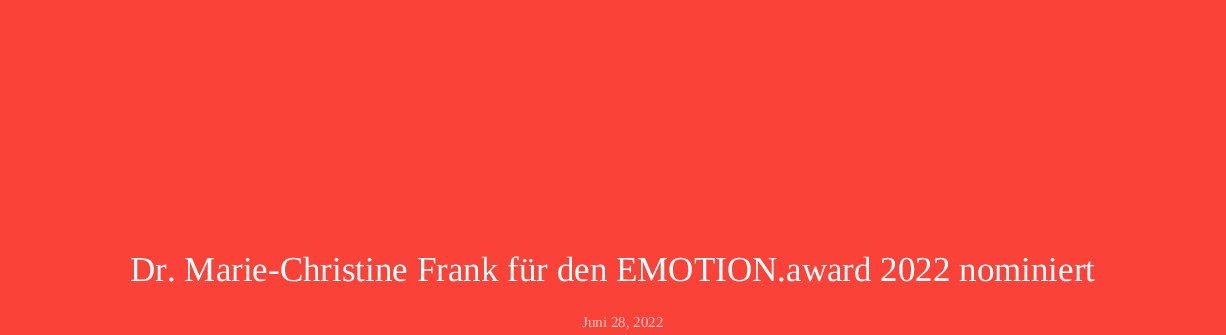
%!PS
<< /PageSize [1226 335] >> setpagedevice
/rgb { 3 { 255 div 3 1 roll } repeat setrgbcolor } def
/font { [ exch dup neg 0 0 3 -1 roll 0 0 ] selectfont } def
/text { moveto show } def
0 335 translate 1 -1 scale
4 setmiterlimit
250 66 56 rgb
0 0 1226 335 rectfill
/LiberationSerif-Regular 35 font
255 255 255 rgb
(Dr. Marie-Christine Frank für den EMOTION.award 2022 nominiert) 130 281 text
/LiberationSerif-Regular 15 font
254 198 195 rgb
(Juni 28, 2022) 582 327 text
showpage
